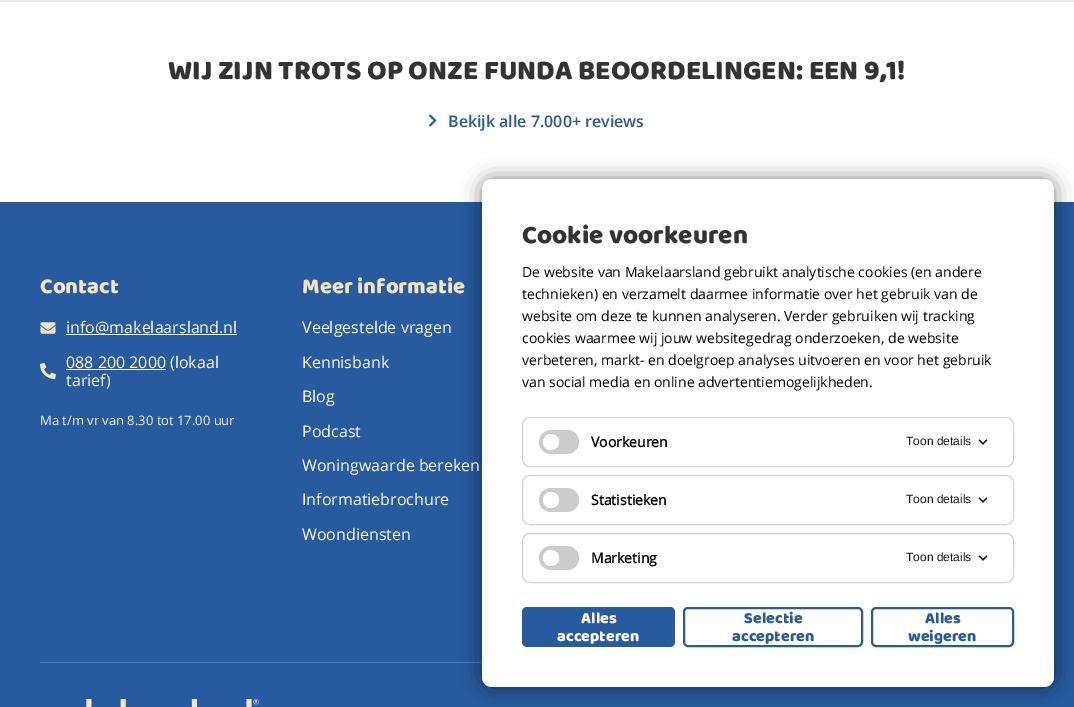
%!PS
<< /PageSize [1074 707] /PageUsesTransparency true >> setpagedevice
/rgb { 3 { 255 div 3 1 roll } repeat setrgbcolor } def
/font { [ exch dup neg 0 0 3 -1 roll 0 0 ] selectfont } def
/text { moveto show } def
/alpha { dup .setfillconstantalpha .setstrokeconstantalpha } def
/circle { newpath 0 360 arc closepath } def
/roundrect { 5 dict begin { /r /h /w /y /x } { exch def } forall
  x r add y moveto x w add y 2 copy h add r arct x w add y h add x 1 index r arct
  x y h add x y r arct x y 2 copy exch w add exch r arct closepath end } def
/shadow { 12 dict begin { /a /b /q /h /w /y /x } { exch def } forall gsave /was 0 def
  9 -2 -9 { dup b mul 4 div /e exch def 1 sub .425 mul 2.718 exch exp 1 add a .99 .min exch div /now exch def
    1 1 now sub 1 was sub div sub alpha /was now def
    w h .min e 2 mul add 0 gt { x e sub y e sub w e 2 mul add h e 2 mul add
      q e add b .6 mul add w h .min 2 div e add .min 0 .max roundrect fill } if } for grestore end } def
/picture { 5 dict begin { /h /w /y /x /name } { exch def } forall
  gsave x y translate w h scale
  w h 8 [w 0 0 h 0 0] name (r) file false 3 colorimage grestore end } def
0 .pushpdf14devicefilter
0 707 translate 1 -1 scale
4 setmiterlimit
255 255 255 rgb
0 0 1074 707 rectfill
235 235 235 rgb
0 0 1074 2 rectfill
(img_01.rgb) 429 114 8 13 picture
40 90 160 rgb
0 202 1074 505 rectfill
(img_02.rgb) 40 322 16 12 picture
255 255 255 rgb
66 334 171 1 rectfill
(img_03.rgb) 40 363 16 16 picture
66 369 100 1 rectfill
78 121 176 rgb
40 662 442 1 rectfill
(img_04.rgb) 86 699 173 8 picture
0 0 0 rgb
482 179 572 508 10 10 0.5 shadow
255 255 255 rgb
482 179 572 508 10 roundrect fill
211 211 211 rgb
522.5 417.5 491 49 7.5 roundrect stroke
204 204 204 rgb
539 430 40 24 12 roundrect fill
255 255 255 rgb
551 442 8 circle fill
(img_05.rgb) 978 439 10 6 picture
211 211 211 rgb
522.5 475.5 491 49 7.5 roundrect stroke
204 204 204 rgb
539 488 40 24 12 roundrect fill
255 255 255 rgb
551 500 8 circle fill
(img_05.rgb) 978 497 10 6 picture
211 211 211 rgb
522.5 533.5 491 49 7.5 roundrect stroke
204 204 204 rgb
539 546 40 24 12 roundrect fill
255 255 255 rgb
551 558 8 circle fill
(img_05.rgb) 978 555 10 6 picture
40 90 160 rgb
522 607 153 40 5 roundrect fill
2 setlinewidth
684 608 178 38 4 roundrect stroke
872 608 141 38 4 roundrect stroke
/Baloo-Regular 28 font
51 51 51 rgb
(WIJ ZIJN TROTS OP ONZE FUNDA BEOORDELINGEN: EEN 9,1!) 168 79 text
/OpenSans-SemiBold 16 font
40 90 160 rgb
(Bekijk alle 7.000+ reviews) 448 127 text
/Baloo-Regular 22 font
245 230 195 rgb
(Contact) 40 293 text
/OpenSans-Regular 16 font
255 255 255 rgb
(info@makelaarsland.nl) 66 333 text
(088 200 2000 \(lokaal) 66 368 text
(tarief\)) 66 386 text
/OpenSans-Regular 13 font
247 244 237 rgb
(Ma t/m vr van 8.30 tot 17.00 uur) 40 425 text
/Baloo-Regular 22 font
245 230 195 rgb
(Meer informatie) 302 293 text
/OpenSans-Regular 16 font
255 255 255 rgb
(Veelgestelde vragen) 302 333 text
(Kennisbank) 302 368 text
(Blog) 302 402 text
(Podcast) 302 437 text
(Woningwaarde bereken) 302 471 text
(Informatiebrochure) 302 505 text
(Woondiensten) 302 540 text
/Baloo-Regular 26 font
51 51 51 rgb
(Cookie voorkeuren) 522 243 text
/OpenSans-Regular 14 font
0 0 0 rgb
(De website van Makelaarsland gebruikt analytische cookies \(en andere) 522 277 text
(technieken\) en verzamelt daarmee informatie over het gebruik van de) 522 299 text
(website om deze te kunnen analyseren. Verder gebruiken wij tracking) 522 321 text
(cookies waarmee wij jouw websitegedrag onderzoeken, de website) 522 343 text
(verbeteren, markt- en doelgroep analyses uitvoeren en voor het gebruik) 522 365 text
(van social media en online advertentiemogelijkheden.) 522 387 text
/OpenSans-Bold 14 font
(Voorkeuren) 591 447 text
/LiberationSans-Regular 12 font
26 26 26 rgb
(Toon details) 906 445 text
/OpenSans-Bold 14 font
0 0 0 rgb
(Statistieken) 591 505 text
/LiberationSans-Regular 12 font
26 26 26 rgb
(Toon details) 906 503 text
/OpenSans-Bold 14 font
0 0 0 rgb
(Marketing) 591 563 text
/LiberationSans-Regular 12 font
26 26 26 rgb
(Toon details) 906 561 text
/Baloo-Regular 16 font
255 255 255 rgb
(Alles) 581 623 text
(accepteren) 557 641 text
40 90 160 rgb
(Selectie) 744 623 text
(accepteren) 732 641 text
(Alles) 925 623 text
(weigeren) 908 641 text
.poppdf14devicefilter showpage
